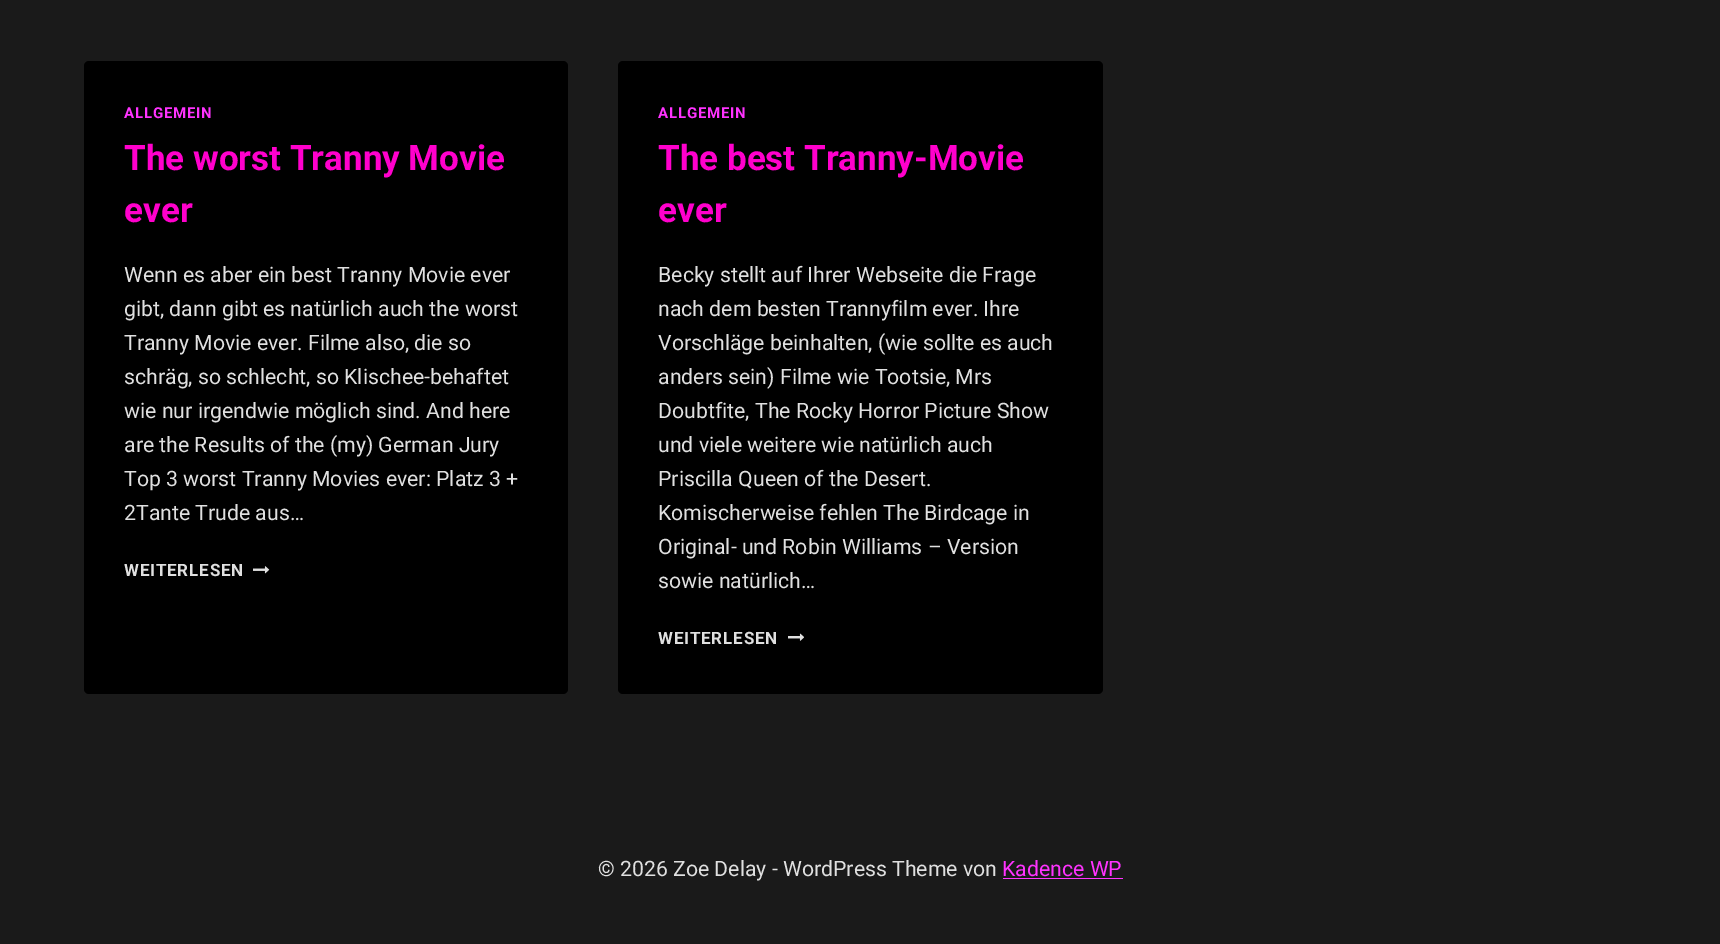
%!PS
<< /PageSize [1720 944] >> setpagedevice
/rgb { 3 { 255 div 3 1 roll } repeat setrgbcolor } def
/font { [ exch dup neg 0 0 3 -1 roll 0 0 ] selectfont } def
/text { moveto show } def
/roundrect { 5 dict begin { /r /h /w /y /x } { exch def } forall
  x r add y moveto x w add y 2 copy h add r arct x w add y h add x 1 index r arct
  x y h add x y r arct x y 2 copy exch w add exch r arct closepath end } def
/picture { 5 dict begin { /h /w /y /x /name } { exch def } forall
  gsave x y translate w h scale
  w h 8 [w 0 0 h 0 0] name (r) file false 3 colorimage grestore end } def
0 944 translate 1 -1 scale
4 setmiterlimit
26 26 26 rgb
0 0 1720 944 rectfill
0 0 0 rgb
84 61 484 633 5 roundrect fill
(img_01.rgb) 253 566 17 8 picture
618 61 485 633 5 roundrect fill
(img_02.rgb) 788 633 16 8 picture
255 51 255 rgb
1003 878 120 1 rectfill
/Roboto-Bold 15 font
124 118 moveto 0.75 0 (ALLGEMEIN) ashow
/Roboto-Bold 35 font
255 0 204 rgb
(The worst Tranny Movie) 124 170 text
(ever) 124 222 text
/Roboto-Regular 21.25 font
224 224 224 rgb
(Wenn es aber ein best Tranny Movie ever) 124 282 text
(gibt, dann gibt es natürlich auch the worst) 124 316 text
(Tranny Movie ever. Filme also, die so) 124 350 text
(schräg, so schlecht, so Klischee-behaftet) 124 384 text
(wie nur irgendwie möglich sind. And here) 124 418 text
(are the Results of the \(my\) German Jury) 124 452 text
(Top 3 worst Tranny Movies ever: Platz 3 +) 124 486 text
(2Tante Trude aus…) 124 520 text
/Roboto-Bold 17 font
124 576 moveto 0.8 0 (WEITERLESEN) ashow
/Roboto-Bold 15 font
255 51 255 rgb
658 118 moveto 0.75 0 (ALLGEMEIN) ashow
/Roboto-Bold 35 font
255 0 204 rgb
(The best Tranny-Movie) 658 170 text
(ever) 658 222 text
/Roboto-Regular 21.25 font
224 224 224 rgb
(Becky stellt auf Ihrer Webseite die Frage) 658 282 text
(nach dem besten Trannyfilm ever. Ihre) 658 316 text
(Vorschläge beinhalten, \(wie sollte es auch) 658 350 text
(anders sein\) Filme wie Tootsie, Mrs) 658 384 text
(Doubtfite, The Rocky Horror Picture Show) 658 418 text
(und viele weitere wie natürlich auch) 658 452 text
(Priscilla Queen of the Desert.) 658 486 text
(Komischerweise fehlen The Birdcage in) 658 520 text
(Original- und Robin Williams – Version) 658 554 text
(sowie natürlich…) 658 588 text
/Roboto-Bold 17 font
658 644 moveto 0.8 0 (WEITERLESEN) ashow
/Roboto-Regular 21.25 font
(© 2026 Zoe Delay - WordPress Theme von) 598 876 text
255 51 255 rgb
(Kadence WP) 1002 876 text
showpage
